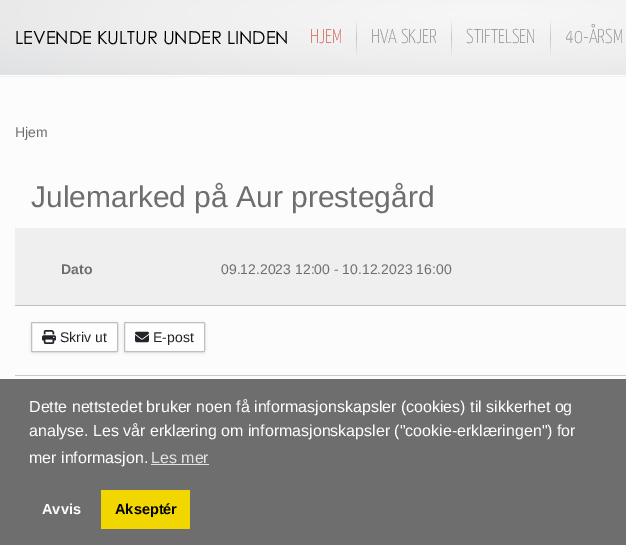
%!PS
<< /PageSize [626 545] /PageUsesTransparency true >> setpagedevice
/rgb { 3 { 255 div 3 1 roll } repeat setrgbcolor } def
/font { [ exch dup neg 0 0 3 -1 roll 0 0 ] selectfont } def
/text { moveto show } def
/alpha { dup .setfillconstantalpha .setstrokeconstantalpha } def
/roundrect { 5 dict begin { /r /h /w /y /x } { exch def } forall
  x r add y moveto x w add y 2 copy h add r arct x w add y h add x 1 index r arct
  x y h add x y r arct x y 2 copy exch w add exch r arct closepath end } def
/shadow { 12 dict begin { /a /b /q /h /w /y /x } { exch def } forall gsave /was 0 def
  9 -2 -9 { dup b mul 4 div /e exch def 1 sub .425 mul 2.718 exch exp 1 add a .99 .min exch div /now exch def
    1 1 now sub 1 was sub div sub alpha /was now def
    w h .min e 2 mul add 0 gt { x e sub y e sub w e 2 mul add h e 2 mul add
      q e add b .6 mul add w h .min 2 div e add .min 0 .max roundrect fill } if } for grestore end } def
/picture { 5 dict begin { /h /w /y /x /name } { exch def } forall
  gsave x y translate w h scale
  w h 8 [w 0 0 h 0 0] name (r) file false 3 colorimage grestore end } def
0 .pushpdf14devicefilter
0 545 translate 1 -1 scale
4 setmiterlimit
240 240 240 rgb
0 0 626 545 rectfill
gsave 0 0 moveto 626 0 rlineto 0 75 rlineto -626 0 rlineto closepath clip newpath 490 14 translate 693 87 scale
<< /ShadingType 3 /ColorSpace /DeviceRGB /Coords [0 0 0 0 0 1] /Extend [true true] /Function << /FunctionType 3 /Domain [0 1] /Functions [<< /FunctionType 2 /Domain [0 1] /C0 [0.969 0.969 0.969] /C1 [0.937 0.937 0.941] /N 1 >> << /FunctionType 2 /Domain [0 1] /C0 [0.937 0.937 0.941] /C1 [0.878 0.882 0.886] /N 1 >>] /Bounds [0.5] /Encode [0 1 0 1] >> >> shfill grestore
255 255 255 rgb
0 75 626 1 rectfill
(img_01.rgb) 356 20 1 35 picture
(img_02.rgb) 451 20 1 35 picture
(img_03.rgb) 550 20 1 35 picture
252 252 252 rgb
0 77 626 302 rectfill
239 239 239 rgb
15 228 611 77 rectfill
191 191 191 rgb
15 305 611 1 rectfill
202 202 202 rgb
15 375 611 1 rectfill
0 0 0 rgb
31 323 87 30 1.5 1.5 0.1 shadow
254 254 254 rgb
31.5 322.5 86 29 1 roundrect gsave fill grestore
192 192 192 rgb
stroke
(img_04.rgb) 42 330 14 14 picture
0 0 0 rgb
124 323 81 30 1.5 1.5 0.1 shadow
254 254 254 rgb
124.5 322.5 80 29 1 roundrect gsave fill grestore
192 192 192 rgb
stroke
(img_05.rgb) 135 331 14 12 picture
110 110 110 rgb
0 379 626 166 rectfill
226 226 226 rgb
151 464 58 1 rectfill
241 214 0 rgb
101 490 89 39 rectfill
/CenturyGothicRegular-Regular 18 font
0 0 0 rgb
(LEVENDE KULTUR UNDER LINDEN) 15 44 text
/YanoneKaffeesatz-Thin 20 font
204 86 70 rgb
(HJEM) 310 43 text
135 135 135 rgb
(HVA SKJER) 371 43 text
(STIFTELSEN) 466 43 text
(40-ÅRSM) 565 43 text
/LiberationSans-Regular 14 font
110 110 110 rgb
(Hjem) 15 137 text
/LiberationSans-Regular 30 font
(Julemarked på Aur prestegård) 31 207 text
/LiberationSans-Bold 14 font
(Dato) 61 274 text
/LiberationSans-Regular 14 font
(09.12.2023 12:00 - 10.12.2023 16:00) 221 274 text
33 37 41 rgb
(Skriv ut) 60 342 text
(E-post) 153 342 text
/LiberationSans-Regular 16 font
255 255 255 rgb
(Dette nettstedet bruker noen få informasjonskapsler \(cookies\) til sikkerhet og) 29 412 text
(analyse. Les vår erklæring om informasjonskapsler \("cookie-erklæringen"\) for) 29 436 text
(mer informasjon.) 29 463 text
226 226 226 rgb
(Les mer) 151 463 text
/LiberationSans-Bold 14.5 font
255 255 255 rgb
(Avvis) 42 514 text
0 0 0 rgb
(Akseptér) 115 514 text
.poppdf14devicefilter showpage
